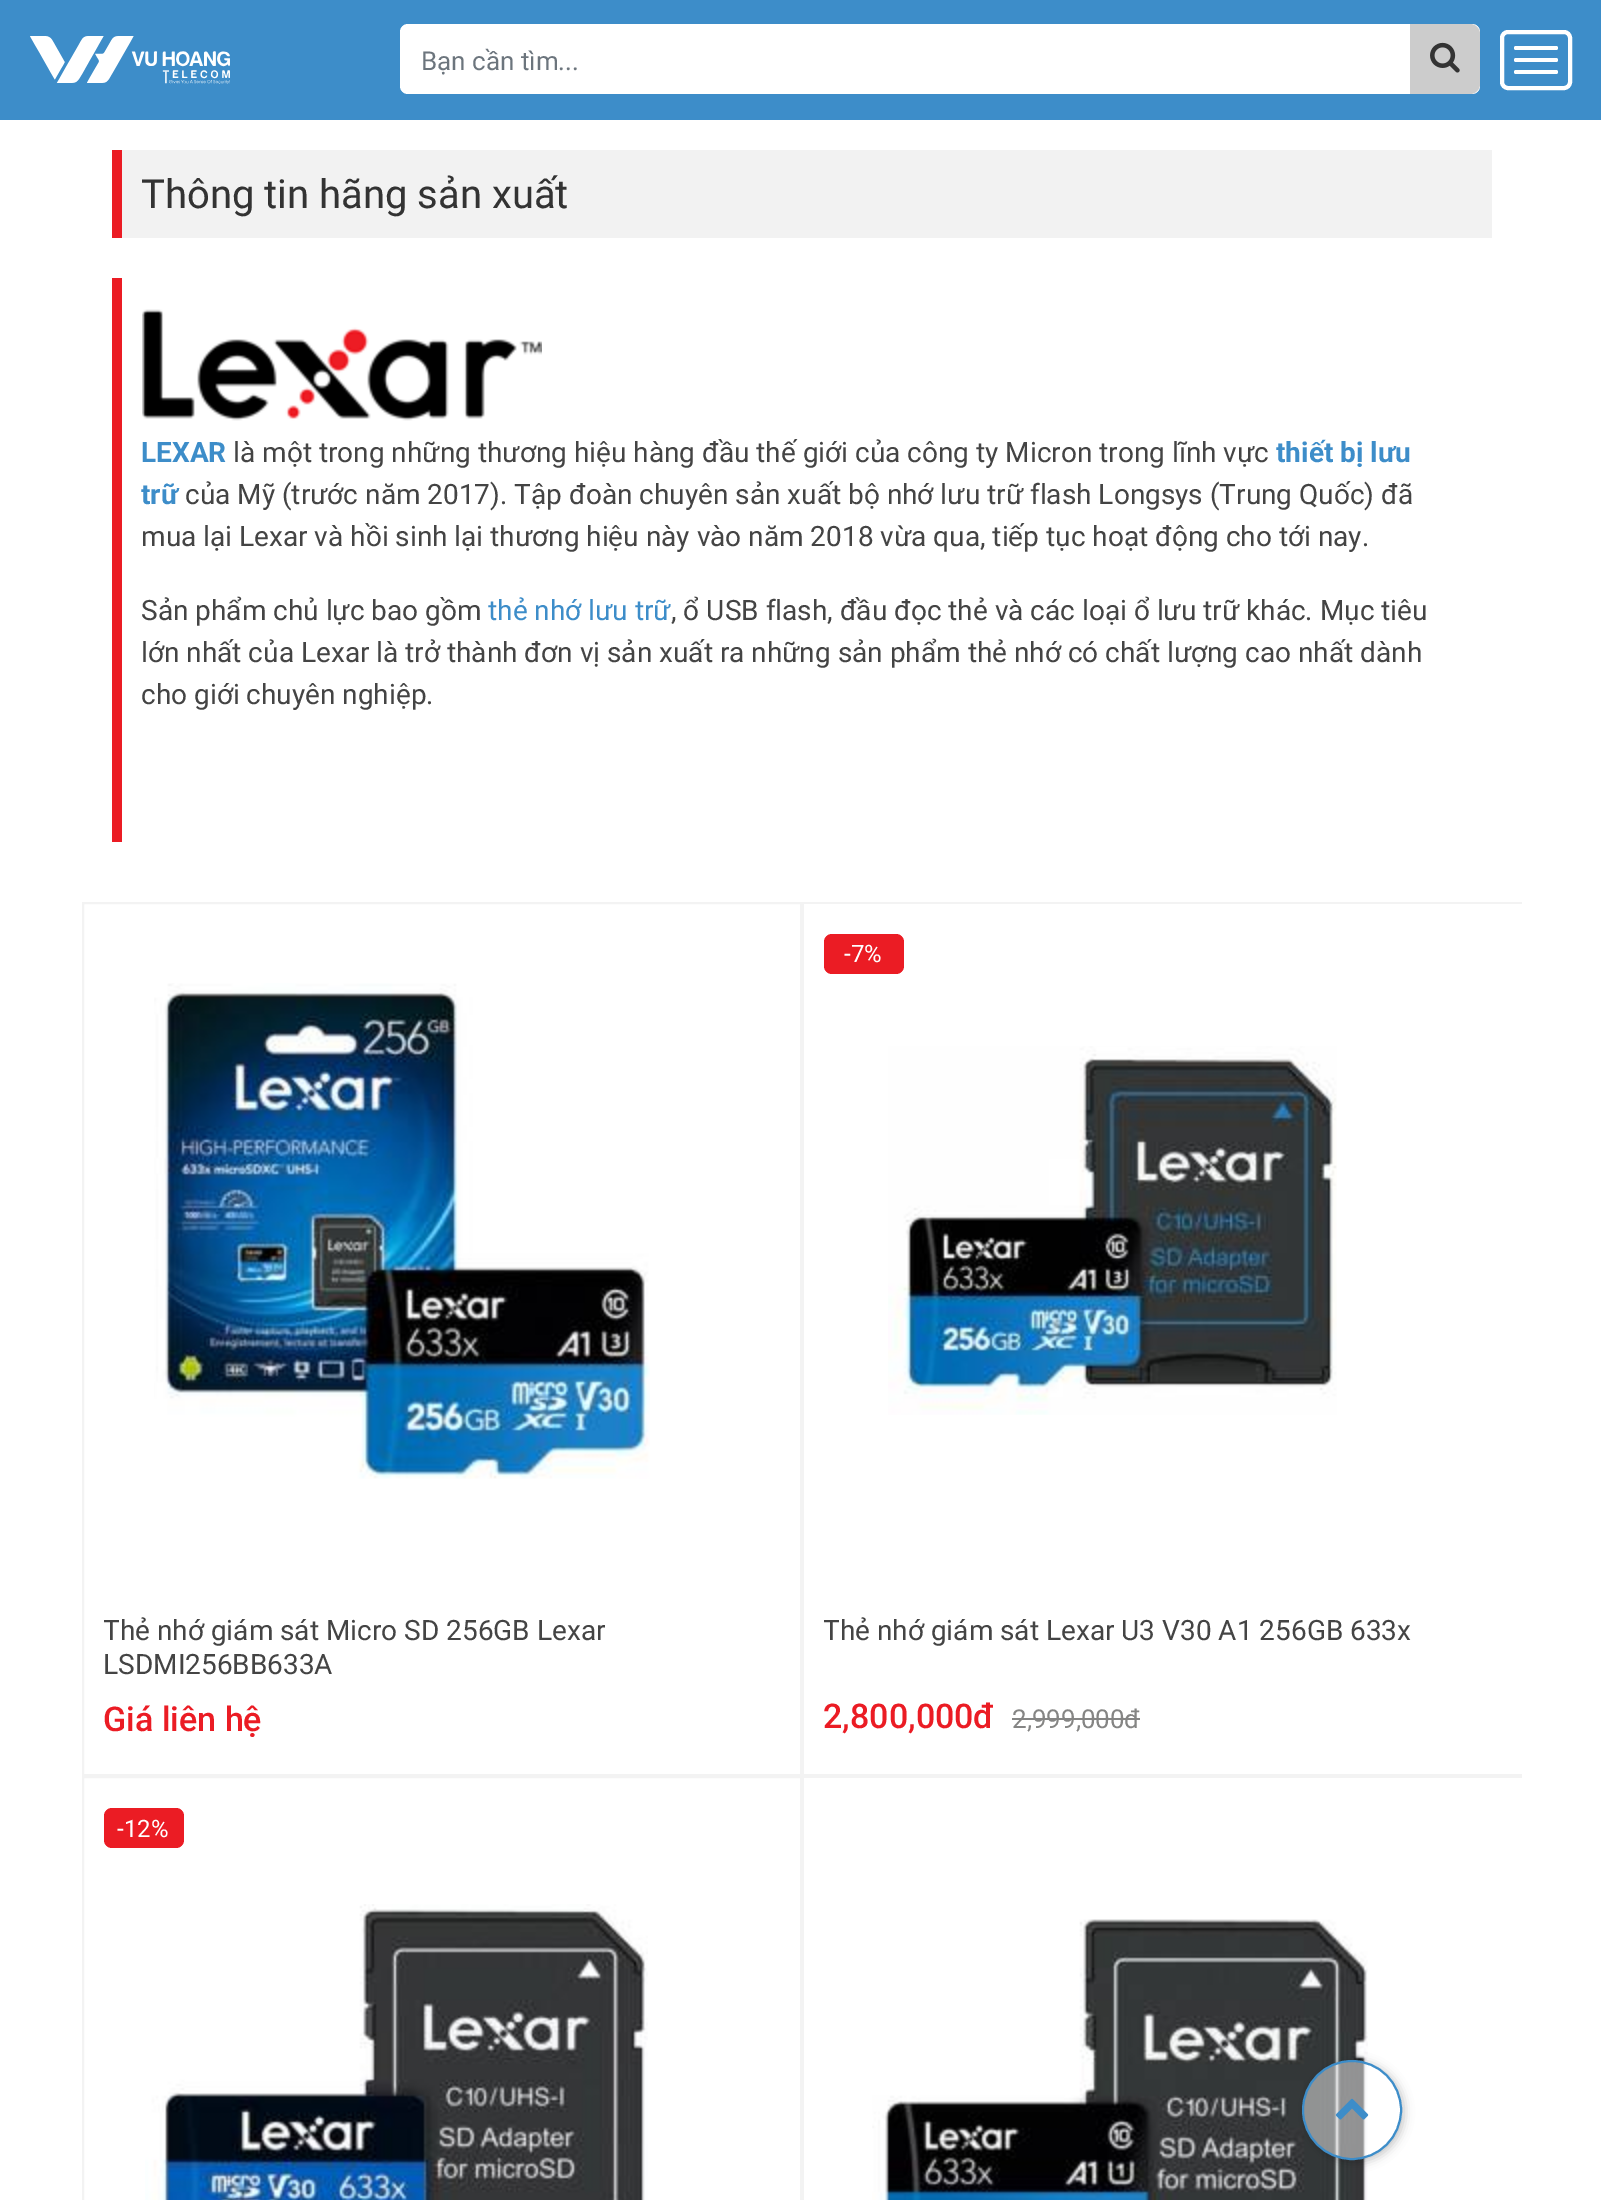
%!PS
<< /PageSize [1601 2200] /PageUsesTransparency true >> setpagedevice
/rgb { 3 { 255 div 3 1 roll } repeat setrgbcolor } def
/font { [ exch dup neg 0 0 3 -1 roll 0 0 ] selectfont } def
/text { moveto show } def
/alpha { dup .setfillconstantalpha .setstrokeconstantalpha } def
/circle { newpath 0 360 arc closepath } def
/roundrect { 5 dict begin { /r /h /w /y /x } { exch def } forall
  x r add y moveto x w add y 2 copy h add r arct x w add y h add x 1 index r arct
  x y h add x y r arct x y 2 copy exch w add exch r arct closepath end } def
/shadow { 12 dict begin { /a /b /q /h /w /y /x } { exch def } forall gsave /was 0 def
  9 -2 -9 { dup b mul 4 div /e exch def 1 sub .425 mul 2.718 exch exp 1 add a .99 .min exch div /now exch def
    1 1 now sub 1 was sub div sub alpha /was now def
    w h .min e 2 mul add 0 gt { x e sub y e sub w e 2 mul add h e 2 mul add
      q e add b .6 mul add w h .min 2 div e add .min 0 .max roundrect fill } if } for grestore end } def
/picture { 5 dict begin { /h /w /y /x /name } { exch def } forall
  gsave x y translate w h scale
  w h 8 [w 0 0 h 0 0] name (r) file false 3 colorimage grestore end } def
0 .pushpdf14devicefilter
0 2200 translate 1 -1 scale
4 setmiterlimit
255 255 255 rgb
0 0 1601 2200 rectfill
61 141 201 rgb
0 0 1601 120 rectfill
(img_01.rgb) 30 36 200 48 picture
255 255 255 rgb
400 24 1080 70 8 roundrect fill
204 204 204 rgb
1410 24 moveto 60 0 rlineto 5.5 0 10 4.5 10 10 rcurveto 0 50 rlineto 0 5.5 -4.5 10 -10 10 rcurveto -60 0 rlineto closepath fill
(img_02.rgb) 1430 42 30 31 picture
255 255 255 rgb
4 setlinewidth
1502 32 68 56 6 roundrect stroke
1514 46 44 4 2 roundrect fill
1514 58 44 4 2 roundrect fill
1514 70 44 4 2 roundrect fill
242 242 242 rgb
122 150 1370 88 rectfill
235 28 36 rgb
112 150 10 88 rectfill
112 278 10 564 rectfill
(img_03.rgb) 142 309 400 112 picture
243 243 243 rgb
2 setlinewidth
83 903 718 872 rectstroke
(img_04.rgb) 154 983 496 496 picture
802 902 720 2 rectfill
802 1774 720 4 rectfill
802 902 2 1298 rectfill
235 28 36 rgb
824 934 80 40 8 roundrect fill
(img_05.rgb) 888 1046 449 369 picture
133 133 132 rgb
1012 1718 128 2 rectfill
243 243 243 rgb
83 1777 718 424 rectstroke
235 28 36 rgb
104 1808 80 40 8 roundrect fill
(img_06.rgb) 145 1904 503 296 picture
(img_07.rgb) 872 1919 496 281 picture
gsave
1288 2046 moveto 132 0 rlineto 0 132 rlineto -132 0 rlineto closepath 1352 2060 moveto 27.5 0 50 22.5 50 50 rcurveto 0 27.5 -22.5 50 -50 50 rcurveto -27.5 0 -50 -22.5 -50 -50 rcurveto 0 -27.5 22.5 -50 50 -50 rcurveto closepath eoclip newpath
0 0 0 rgb
1304 2062 100 100 50 5 0.24 shadow
grestore
0.46 alpha
255 255 255 rgb
1352 2110 49 circle fill
1 alpha
61 141 201 rgb
1352 2110 49 circle stroke
(img_08.rgb) 1335 2098 34 22 picture
/Roboto-Regular 26 font
108 117 125 rgb
(Bạn cần tìm...) 421 70 text
/Roboto-Regular 40 font
51 51 51 rgb
(Thông tin hãng sản xuất) 141 208 text
/Roboto-Bold 28 font
61 141 201 rgb
(LEXAR) 141 462 text
/Roboto-Regular 28 font
68 68 68 rgb
(là một trong những thương hiệu hàng đầu thế giới của công ty Micron trong lĩnh vực) 233 462 text
/Roboto-Bold 28 font
61 141 201 rgb
(thiết bị lưu) 1276 462 text
(trữ) 141 504 text
/Roboto-Regular 28 font
68 68 68 rgb
(của Mỹ \(trước năm 2017\). Tập đoàn chuyên sản xuất bộ nhớ lưu trữ flash Longsys \(Trung Quốc\) đã) 185 504 text
(mua lại Lexar và hồi sinh lại thương hiệu này vào năm 2018 vừa qua, tiếp tục hoạt động cho tới nay.) 141 546 text
(Sản phẩm chủ lực bao gồm) 141 620 text
61 141 201 rgb
(thẻ nhớ lưu trữ) 488 620 text
68 68 68 rgb
(, ổ USB flash, đầu đọc thẻ và các loại ổ lưu trữ khác. Mục tiêu) 671 620 text
(lớn nhất của Lexar là trở thành đơn vị sản xuất ra những sản phẩm thẻ nhớ có chất lượng cao nhất dành) 141 662 text
(cho giới chuyên nghiệp.) 141 704 text
gsave
104 1614 676 68 rectclip
(Thẻ nhớ giám sát Micro SD 256GB Lexar) 103 1640 text
grestore
(LSDMI256BB633A) 103 1674 text
/Roboto-Medium 34 font
235 28 36 rgb
(Giá liên hệ) 103 1731 text
/Roboto-Regular 24 font
255 255 255 rgb
(-7%) 844 962 text
gsave
824 1614 678 64 rectclip
/Roboto-Regular 28 font
68 68 68 rgb
(Thẻ nhớ giám sát Lexar U3 V30 A1 256GB 633x) 823 1640 text
grestore
/Roboto-Medium 34 font
235 28 36 rgb
(2,800,000đ) 823 1728 text
/Roboto-Regular 26 font
133 133 132 rgb
(2,999,000đ) 1012 1728 text
/Roboto-Regular 24 font
255 255 255 rgb
(-12%) 117 1837 text
.poppdf14devicefilter showpage
